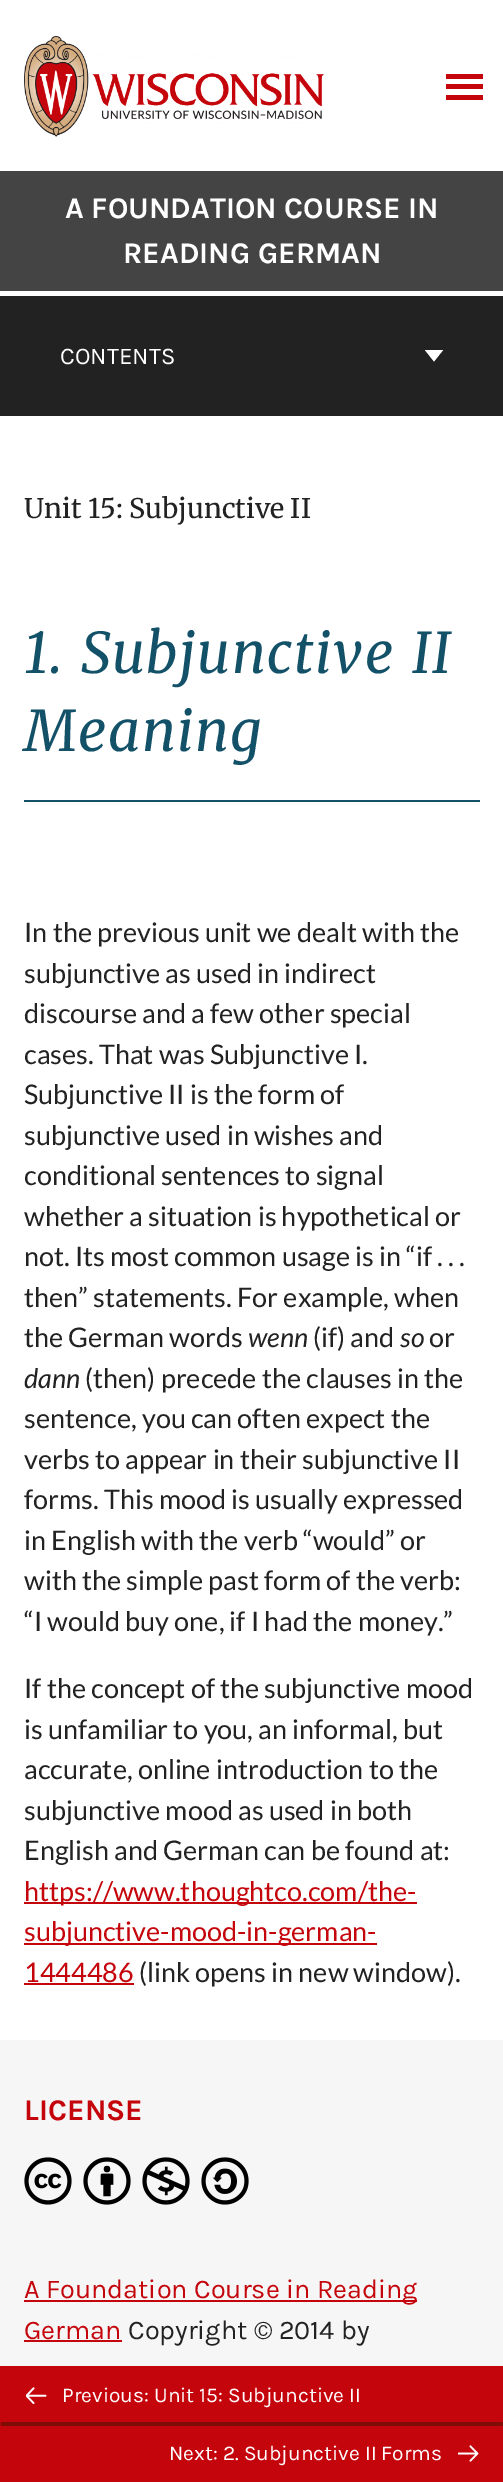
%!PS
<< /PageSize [503 2482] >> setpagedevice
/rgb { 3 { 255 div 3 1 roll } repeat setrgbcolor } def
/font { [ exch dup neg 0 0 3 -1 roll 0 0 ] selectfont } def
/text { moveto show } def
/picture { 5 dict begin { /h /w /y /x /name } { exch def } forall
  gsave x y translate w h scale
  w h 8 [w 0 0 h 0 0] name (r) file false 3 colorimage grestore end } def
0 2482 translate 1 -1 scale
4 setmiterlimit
255 255 255 rgb
0 0 503 2482 rectfill
(img_01.rgb) 24 36 300 101 picture
197 5 12 rgb
446 84 37 5 rectfill
446 74 37 5 rectfill
446 95 37 5 rectfill
34 34 34 rgb
0 296 503 120 rectfill
68 68 68 rgb
0 171 503 120 rectfill
gsave
425 350 19 12 rectclip
255 255 255 rgb
434 361.5 moveto -9.5 -12 rlineto 19 0 rlineto closepath eofill
grestore
19 81 105 rgb
24 800 456 2 rectfill
197 5 12 rgb
24 1902 393 2 rectfill
24 1943 353 2 rectfill
24 1983 110 2 rectfill
246 246 246 rgb
0 2040 503 326 rectfill
(img_02.rgb) 24 2157 225 48 picture
197 5 12 rgb
24 2300 393 2 rectfill
24 2340 98 2 rectfill
0 2366 503 116 rectfill
127 12 7 rgb
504 2424 moveto -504 0 rlineto 2 -2 rlineto 500 0 rlineto closepath fill
(img_03.rgb) 26 2387 21 17 picture
0 2424 moveto 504 0 rlineto -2 2 rlineto -500 0 rlineto closepath fill
(img_04.rgb) 458 2445 21 17 picture
/Karla-Bold 30 font
255 255 255 rgb
(A FOUNDATION COURSE IN) 65 218 text
(READING GERMAN) 123 263 text
/Karla-Regular 24 font
(CONTENTS) 60 364 text
/Merriweather-Regular 27 font
34 34 34 rgb
(Unit 15: Subjunctive II) 24 518 text
/Merriweather-Italic 56 font
19 81 105 rgb
24 673 moveto 3 0 32 1.5 0 (1. Subjunctive II) awidthshow
24 751 moveto 1.5 0 (Meaning) ashow
/Lato-Regular 27 font
34 34 34 rgb
(In the previous unit we dealt with the) 24 942 text
(subjunctive as used in indirect) 24 983 text
(discourse and a few other special) 24 1023 text
(cases. That was Subjunctive I.) 24 1064 text
(Subjunctive II is the form of) 24 1104 text
(subjunctive used in wishes and) 24 1145 text
(conditional sentences to signal) 24 1185 text
(whether a situation is hypothetical or) 24 1226 text
(not. Its most common usage is in “if . . .) 24 1266 text
(then” statements. For example, when) 24 1307 text
(the German words) 24 1347 text
/Lato-Italic 27 font
(wenn) 248 1347 text
/Lato-Regular 27 font
(\(if\) and) 313 1347 text
/Lato-Italic 27 font
(so) 400 1347 text
/Lato-Regular 27 font
(or) 429 1347 text
/Lato-Italic 27 font
(dann) 24 1388 text
/Lato-Regular 27 font
(\(then\) precede the clauses in the) 85 1388 text
(sentence, you can often expect the) 24 1428 text
(verbs to appear in their subjunctive II) 24 1469 text
(forms. This mood is usually expressed) 24 1509 text
(in English with the verb “would” or) 24 1550 text
(with the simple past form of the verb:) 24 1590 text
(“I would buy one, if I had the money.”) 24 1631 text
(If the concept of the subjunctive mood) 24 1698 text
(is unfamiliar to you, an informal, but) 24 1739 text
(accurate, online introduction to the) 24 1779 text
(subjunctive mood as used in both) 24 1820 text
(English and German can be found at:) 24 1860 text
197 5 12 rgb
(https://www.thoughtco.com/the-) 24 1901 text
(subjunctive-mood-in-german-) 24 1941 text
(1444486) 24 1982 text
34 34 34 rgb
(\(link opens in new window\).) 139 1982 text
/Karla-Bold 30 font
197 5 12 rgb
(LICENSE) 24 2120 text
/Karla-Regular 27 font
(A Foundation Course in Reading) 24 2298 text
(German) 24 2339 text
34 34 34 rgb
(Copyright © 2014 by) 128 2339 text
/Karla-Regular 21 font
255 255 255 rgb
(Previous: Unit 15: Subjunctive II) 62 2402 text
(Next: 2. Subjunctive II Forms) 169 2460 text
showpage
